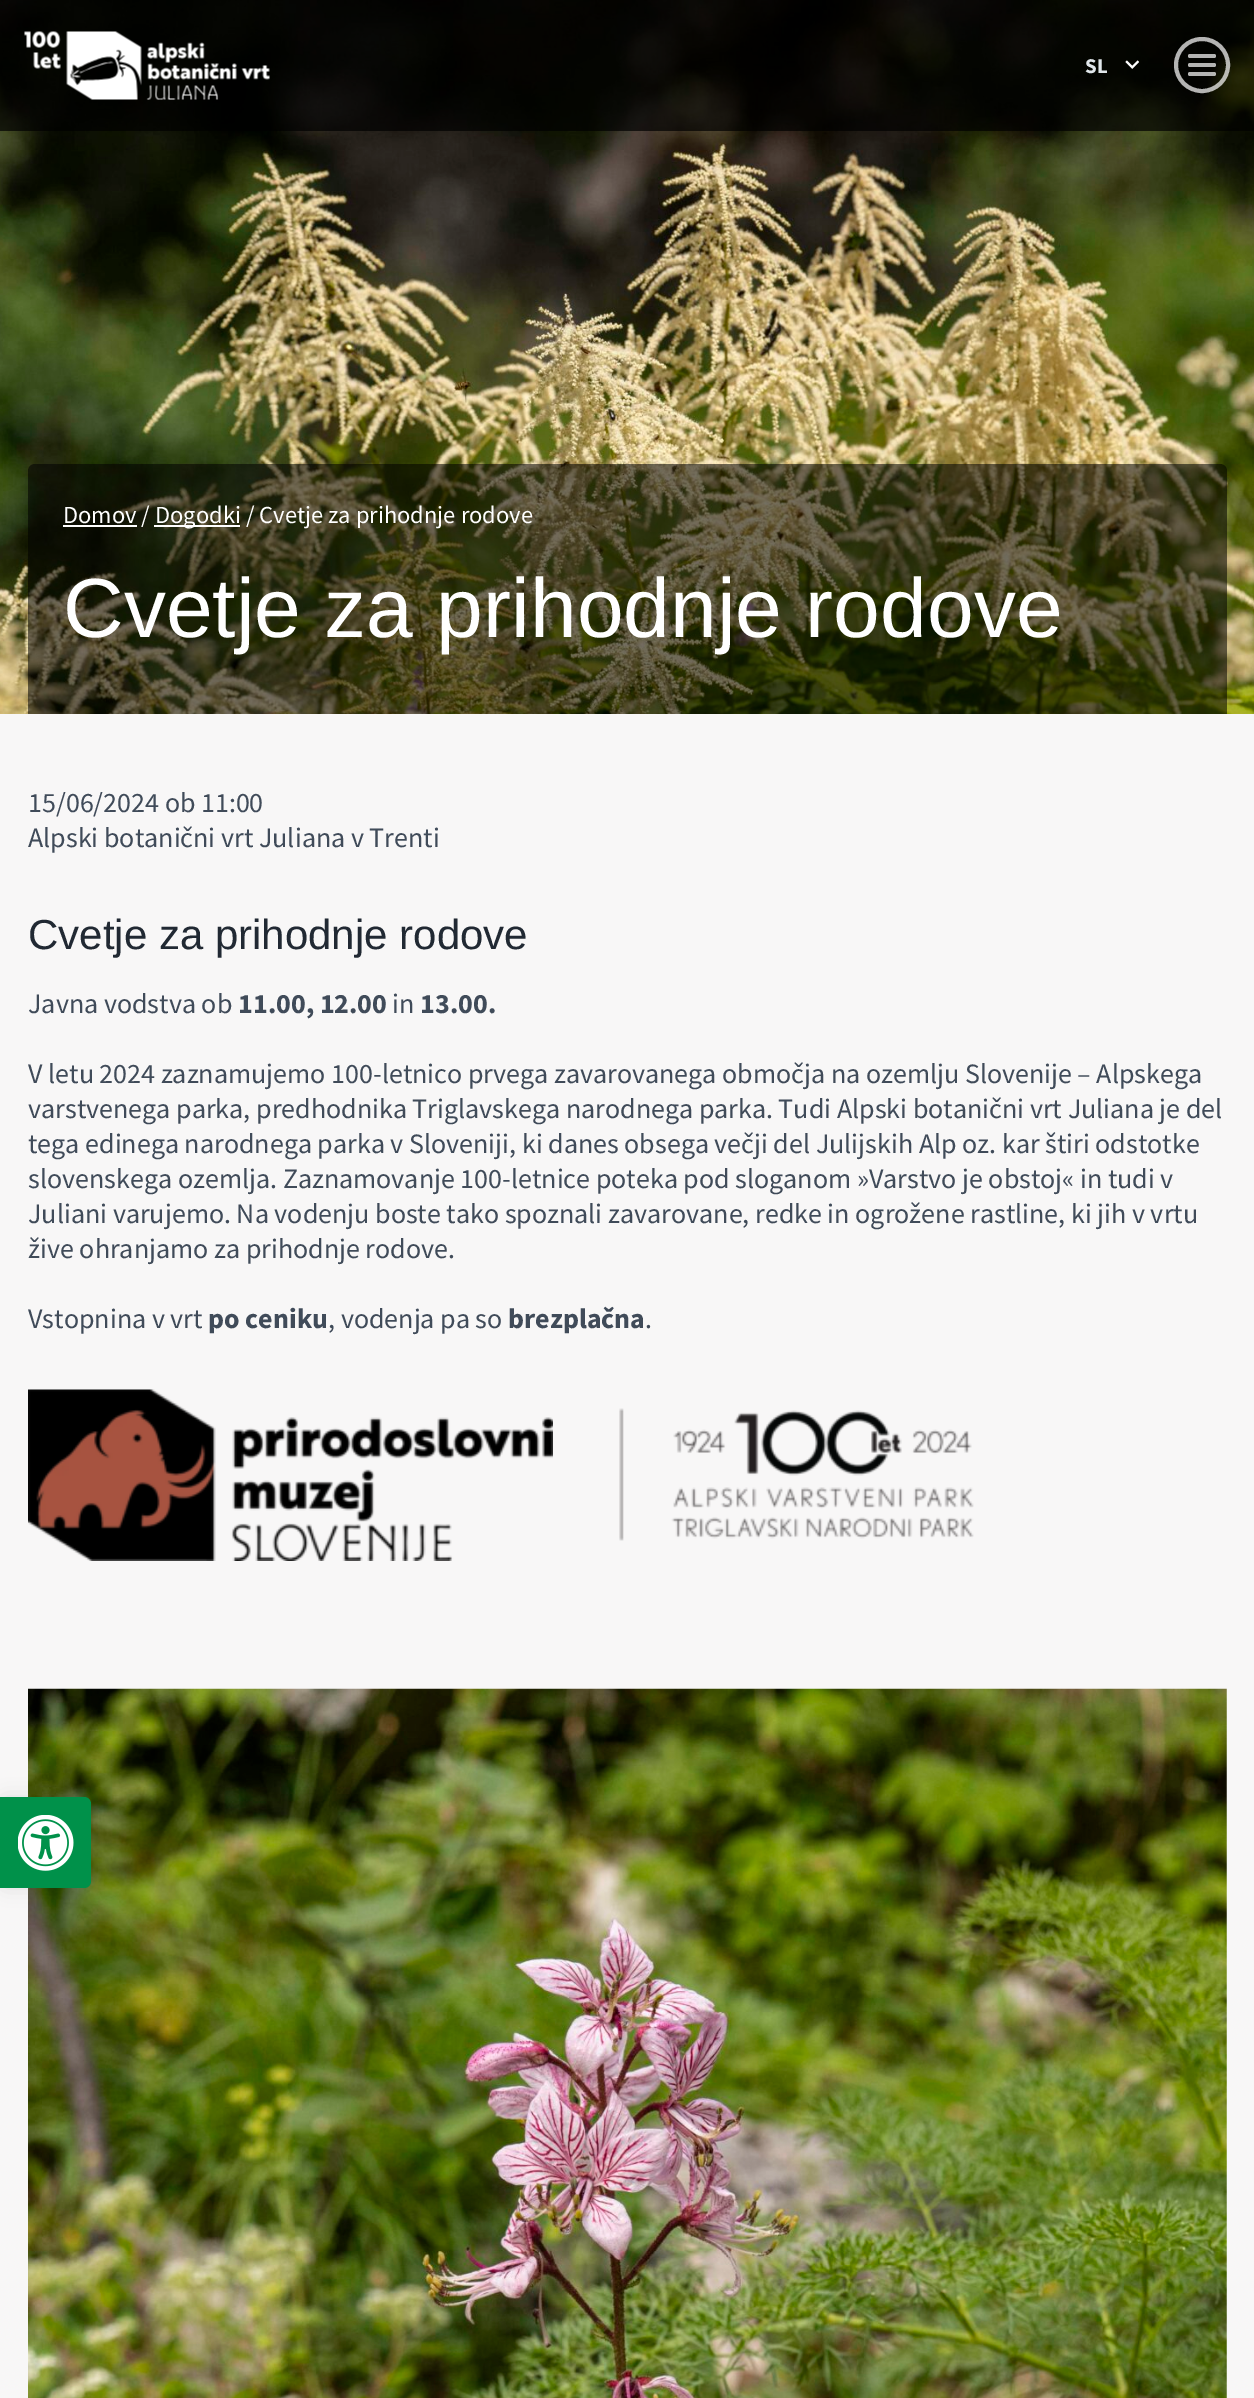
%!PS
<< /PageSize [1254 2398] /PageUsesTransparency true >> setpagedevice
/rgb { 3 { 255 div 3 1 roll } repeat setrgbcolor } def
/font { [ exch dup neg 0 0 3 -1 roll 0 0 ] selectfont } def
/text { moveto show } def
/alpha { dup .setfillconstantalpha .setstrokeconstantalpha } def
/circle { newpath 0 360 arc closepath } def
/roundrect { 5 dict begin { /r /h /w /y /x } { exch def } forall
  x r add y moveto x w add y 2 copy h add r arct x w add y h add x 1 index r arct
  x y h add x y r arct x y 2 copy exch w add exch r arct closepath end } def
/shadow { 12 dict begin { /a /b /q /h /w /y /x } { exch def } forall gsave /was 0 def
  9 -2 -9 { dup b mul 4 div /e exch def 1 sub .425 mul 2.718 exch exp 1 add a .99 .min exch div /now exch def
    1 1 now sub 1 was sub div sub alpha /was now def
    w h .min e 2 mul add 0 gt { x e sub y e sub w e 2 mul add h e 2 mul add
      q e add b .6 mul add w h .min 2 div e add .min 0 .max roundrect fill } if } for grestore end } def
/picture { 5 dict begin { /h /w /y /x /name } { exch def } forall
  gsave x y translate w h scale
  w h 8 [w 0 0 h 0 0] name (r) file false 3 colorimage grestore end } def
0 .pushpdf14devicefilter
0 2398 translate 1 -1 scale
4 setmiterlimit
248 247 247 rgb
0 0 1254 2398 rectfill
(img_03.rgb) 0 0 1254 714 picture
0.7 alpha
0 0 0 rgb
0 0 1254 131 rectfill
1 alpha
(img_01.rgb) 24 31 246 69 picture
(img_02.rgb) 1125 60 14 9 picture
0.7 alpha
255 255 255 rgb
4 setlinewidth
1202 65 26 circle stroke
1188 54 28 4 2 roundrect fill
1188 63 28 4 2 roundrect fill
1188 72 28 4 2 roundrect fill
0.55 alpha
0 0 0 rgb
35 464 moveto 1185 0 rlineto 4 0 7 3 7 7 rcurveto 0 243 rlineto -1199 0 rlineto 0 -243 rlineto 0 -4 3 -7 7 -7 rcurveto closepath fill
1 alpha
255 255 255 rgb
63 525 74 2 rectfill
154 525 86 2 rectfill
(img_04.rgb) 28 1389 525 172 picture
(img_05.rgb) 619 1408 355 133 picture
(img_06.rgb) 28 1688 1199 710 picture
0 0 0 rgb
0 1797 91 91 7 9 0.1 shadow
0 145 74 rgb
0 1797 moveto 84 0 rlineto 4 0 7 3 7 7 rcurveto 0 77 rlineto 0 4 -3 7 -7 7 rcurveto -84 0 rlineto closepath fill
(img_07.rgb) 18 1815 56 56 picture
/SourceSansPro-Bold 21 font
225 231 235 rgb
(SL) 1085 73 text
/SourceSansPro-Regular 24.5 font
255 255 255 rgb
(Domov /) 63 523 text
(Dogodki / Cvetje za prihodnje rodove) 155 523 text
/LiberationSans-Regular 84 font
(Cvetje za prihodnje rodove) 63 637 text
/SourceSansPro-Regular 28 font
64 75 89 rgb
(15/06/2024 ob 11:00) 28 812 text
(Alpski botanični vrt Juliana v Trenti) 28 847 text
/LiberationSans-Regular 42 font
33 41 51 rgb
(Cvetje za prihodnje rodove) 28 949 text
/SourceSansPro-Regular 28 font
64 75 89 rgb
(Javna vodstva ob) 28 1013 text
/SourceSansPro-Bold 28 font
(11.00, 12.00) 238 1013 text
/SourceSansPro-Regular 28 font
(in) 392 1013 text
/SourceSansPro-Bold 28 font
(13.00.) 420 1013 text
/SourceSansPro-Regular 28 font
(V letu 2024 zaznamujemo 100-letnico prvega zavarovanega območja na ozemlju Slovenije – Alpskega) 28 1083 text
(varstvenega parka, predhodnika Triglavskega narodnega parka. Tudi Alpski botanični vrt Juliana je del) 28 1118 text
(tega edinega narodnega parka v Sloveniji, ki danes obsega večji del Julijskih Alp oz. kar štiri odstotke) 28 1153 text
(slovenskega ozemlja. Zaznamovanje 100-letnice poteka pod sloganom »Varstvo je obstoj« in tudi v) 28 1188 text
(Juliani varujemo. Na vodenju boste tako spoznali zavarovane, redke in ogrožene rastline, ki jih v vrtu) 28 1223 text
(žive ohranjamo za prihodnje rodove.) 28 1258 text
(Vstopnina v vrt) 28 1328 text
/SourceSansPro-Bold 28 font
(po ceniku) 208 1328 text
/SourceSansPro-Regular 28 font
(, vodenja pa so) 328 1328 text
/SourceSansPro-Bold 28 font
(brezplačna) 508 1328 text
/SourceSansPro-Regular 28 font
(.) 645 1328 text
.poppdf14devicefilter showpage
